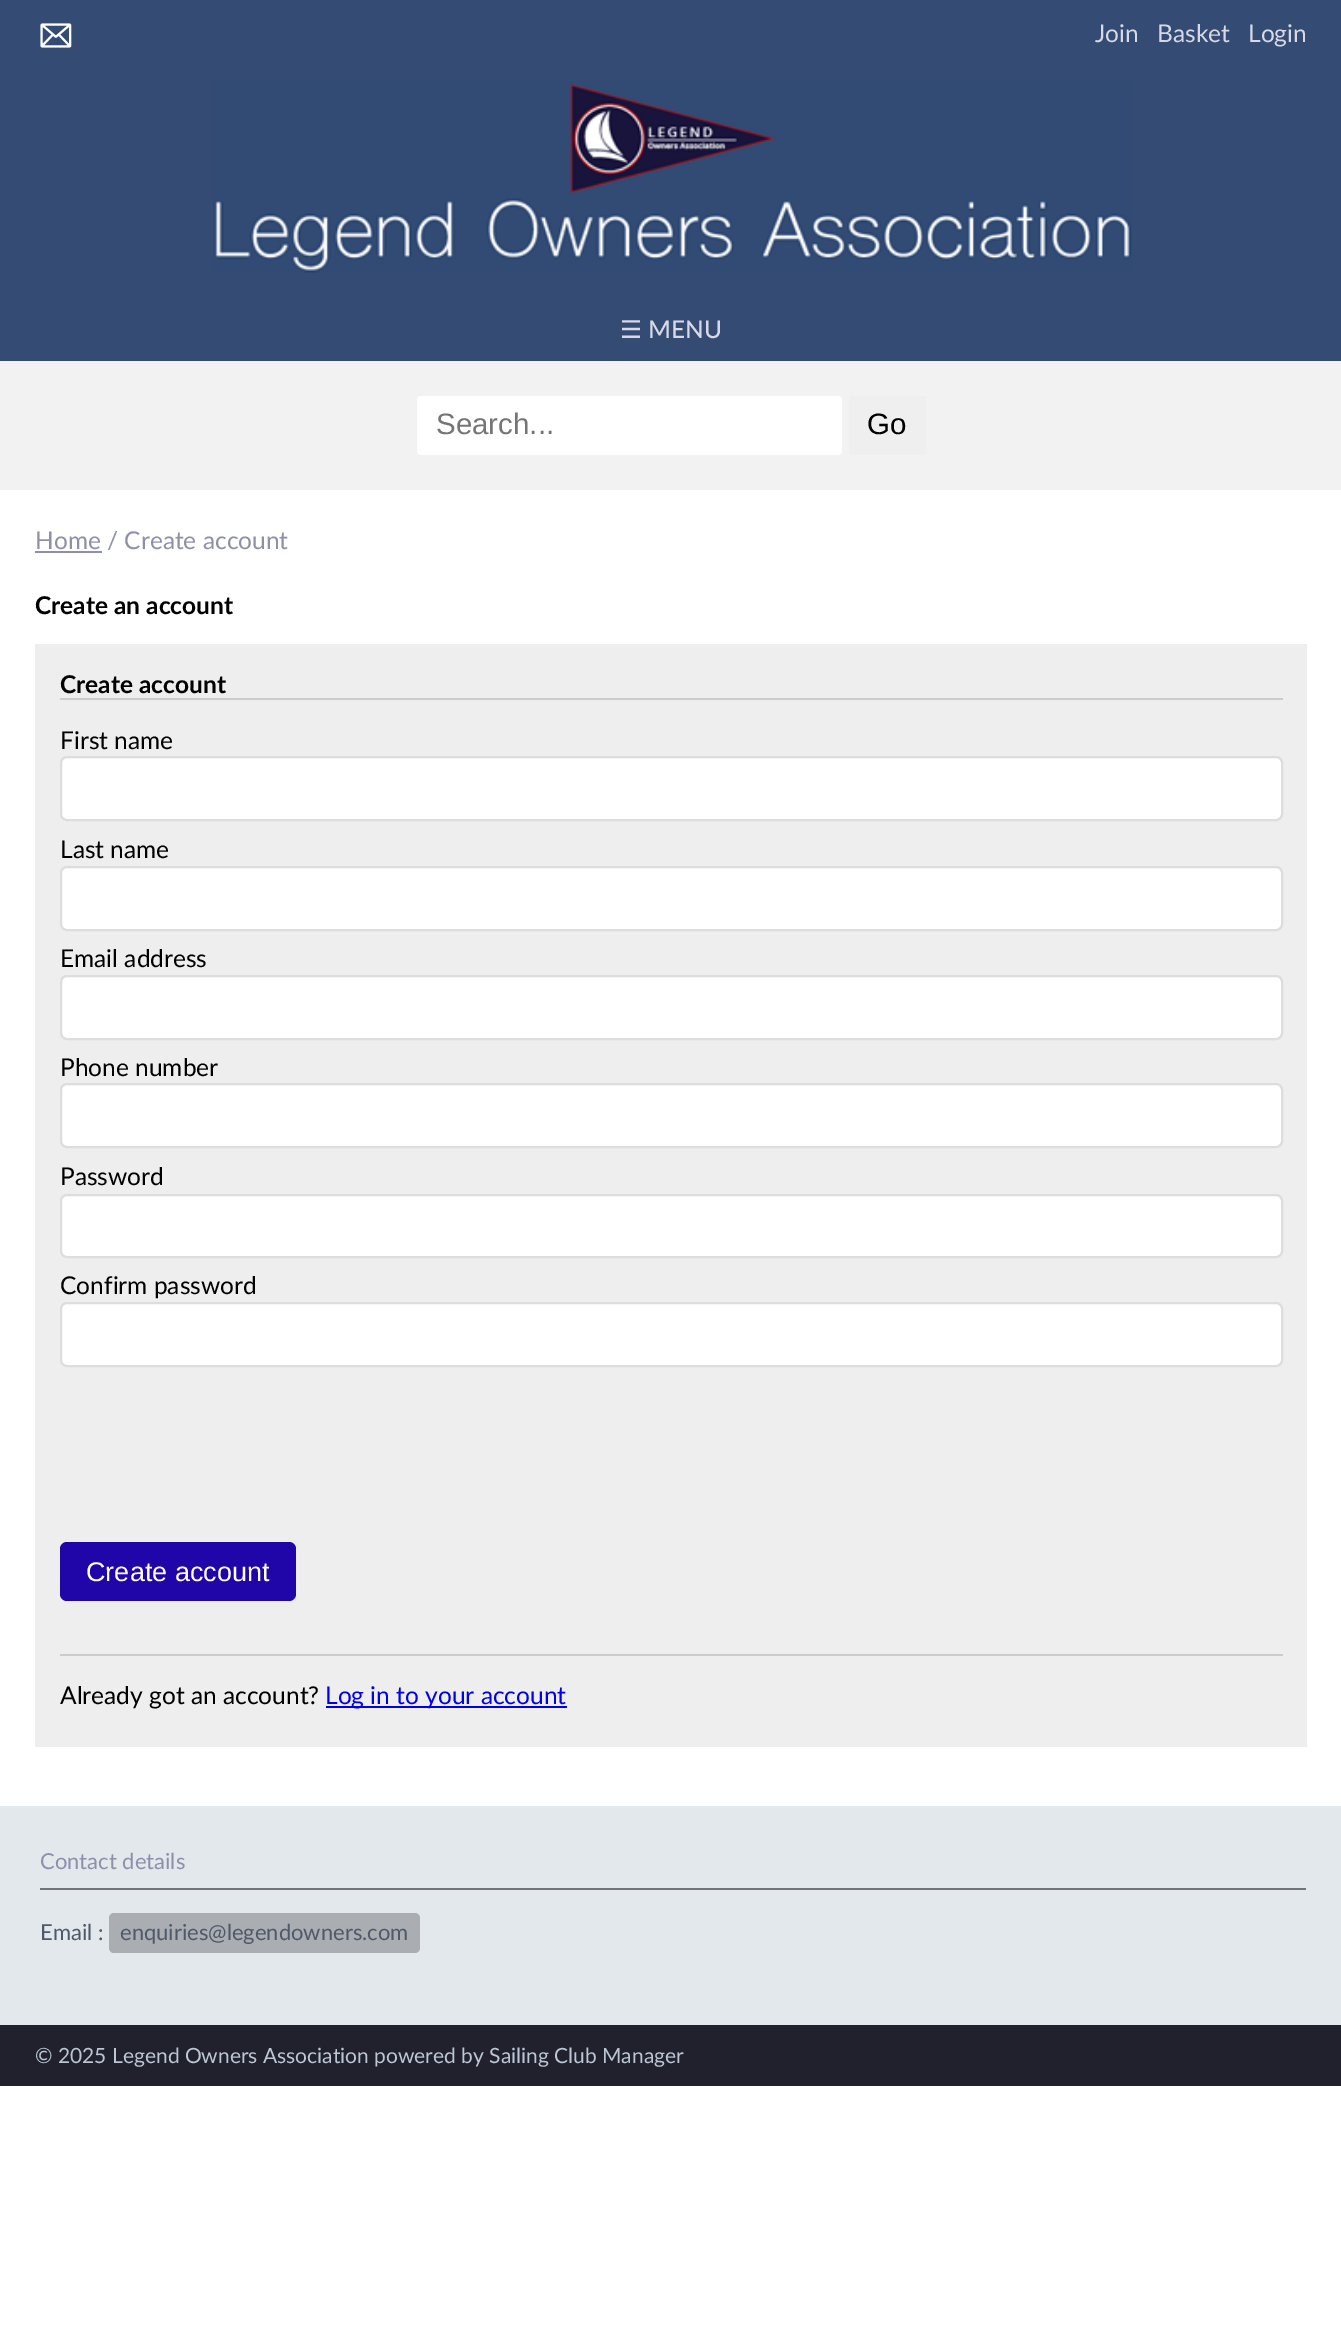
%!PS
<< /PageSize [1341 2350] >> setpagedevice
/rgb { 3 { 255 div 3 1 roll } repeat setrgbcolor } def
/font { [ exch dup neg 0 0 3 -1 roll 0 0 ] selectfont } def
/text { moveto show } def
/roundrect { 5 dict begin { /r /h /w /y /x } { exch def } forall
  x r add y moveto x w add y 2 copy h add r arct x w add y h add x 1 index r arct
  x y h add x y r arct x y 2 copy exch w add exch r arct closepath end } def
/picture { 5 dict begin { /h /w /y /x /name } { exch def } forall
  gsave x y translate w h scale
  w h 8 [w 0 0 h 0 0] name (r) file false 3 colorimage grestore end } def
0 2350 translate 1 -1 scale
4 setmiterlimit
255 255 255 rgb
0 0 1341 2350 rectfill
52 76 115 rgb
0 0 1341 361 rectfill
(img_01.rgb) 40 23 32 25 picture
(img_02.rgb) 213 81 919 192 picture
242 242 242 rgb
0 361 1341 129 rectfill
255 255 255 rgb
417 396 425 59 4 roundrect fill
239 239 239 rgb
849 396 77 59 4 roundrect fill
142 144 171 rgb
35 551 67 2 rectfill
238 238 238 rgb
35 644 1272 1103 rectfill
204 204 204 rgb
60 698 1223 2 rectfill
255 255 255 rgb
61 757 1221 63 6 roundrect gsave fill grestore
221 221 221 rgb
2 setlinewidth
stroke
255 255 255 rgb
61 867 1221 63 6 roundrect gsave fill grestore
221 221 221 rgb
stroke
255 255 255 rgb
61 976 1221 63 6 roundrect gsave fill grestore
221 221 221 rgb
stroke
255 255 255 rgb
61 1084 1221 63 6 roundrect gsave fill grestore
221 221 221 rgb
stroke
255 255 255 rgb
61 1195 1221 62 6 roundrect gsave fill grestore
221 221 221 rgb
stroke
255 255 255 rgb
61 1303 1221 63 6 roundrect gsave fill grestore
221 221 221 rgb
stroke
32 5 168 rgb
60 1542 236 59 7 roundrect fill
204 204 204 rgb
60 1654 1223 2 rectfill
0 0 238 rgb
326 1706 241 2 rectfill
227 232 237 rgb
0 1806 1341 219 rectfill
114 116 119 rgb
40 1888 1266 2 rectfill
170 174 178 rgb
109 1913 311 40 5 roundrect fill
32 33 45 rgb
0 2025 1341 61 rectfill
/Lato-Regular 24.5 font
216 216 230 rgb
(Join) 1095 42 text
(Basket) 1157 42 text
(Login) 1248 42 text
/DejaVuSans-Regular 24.5 font
(☰) 620 338 text
/Lato-Medium 24.5 font
(MENU) 648 338 text
/LiberationSans-Regular 29.5 font
117 117 117 rgb
(Search...) 436 434 text
0 0 0 rgb
(Go) 867 434 text
/Lato-Regular 24.5 font
142 144 171 rgb
(Home / Create account) 35 549 text
/Lato-Bold 24.5 font
0 0 0 rgb
(Create an account) 35 614 text
(Create account) 60 693 text
/Lato-Regular 24.5 font
(First name) 60 749 text
(Last name) 60 858 text
(Email address) 60 967 text
(Phone number) 60 1076 text
(Password) 60 1185 text
(Confirm password) 60 1294 text
/LiberationSans-Regular 27 font
255 255 255 rgb
(Create account) 86 1581 text
/Lato-Regular 24.5 font
0 0 0 rgb
(Already got an account?) 60 1704 text
0 0 238 rgb
(Log in to your account) 325 1704 text
/Lato-Regular 22 font
142 144 171 rgb
(Contact details) 40 1869 text
79 89 105 rgb
(Email :) 40 1940 text
(enquiries@legendowners.com) 120 1940 text
/Lato-Regular 21 font
188 198 212 rgb
(© 2025 Legend Owners Association powered by Sailing Club Manager) 35 2063 text
showpage
